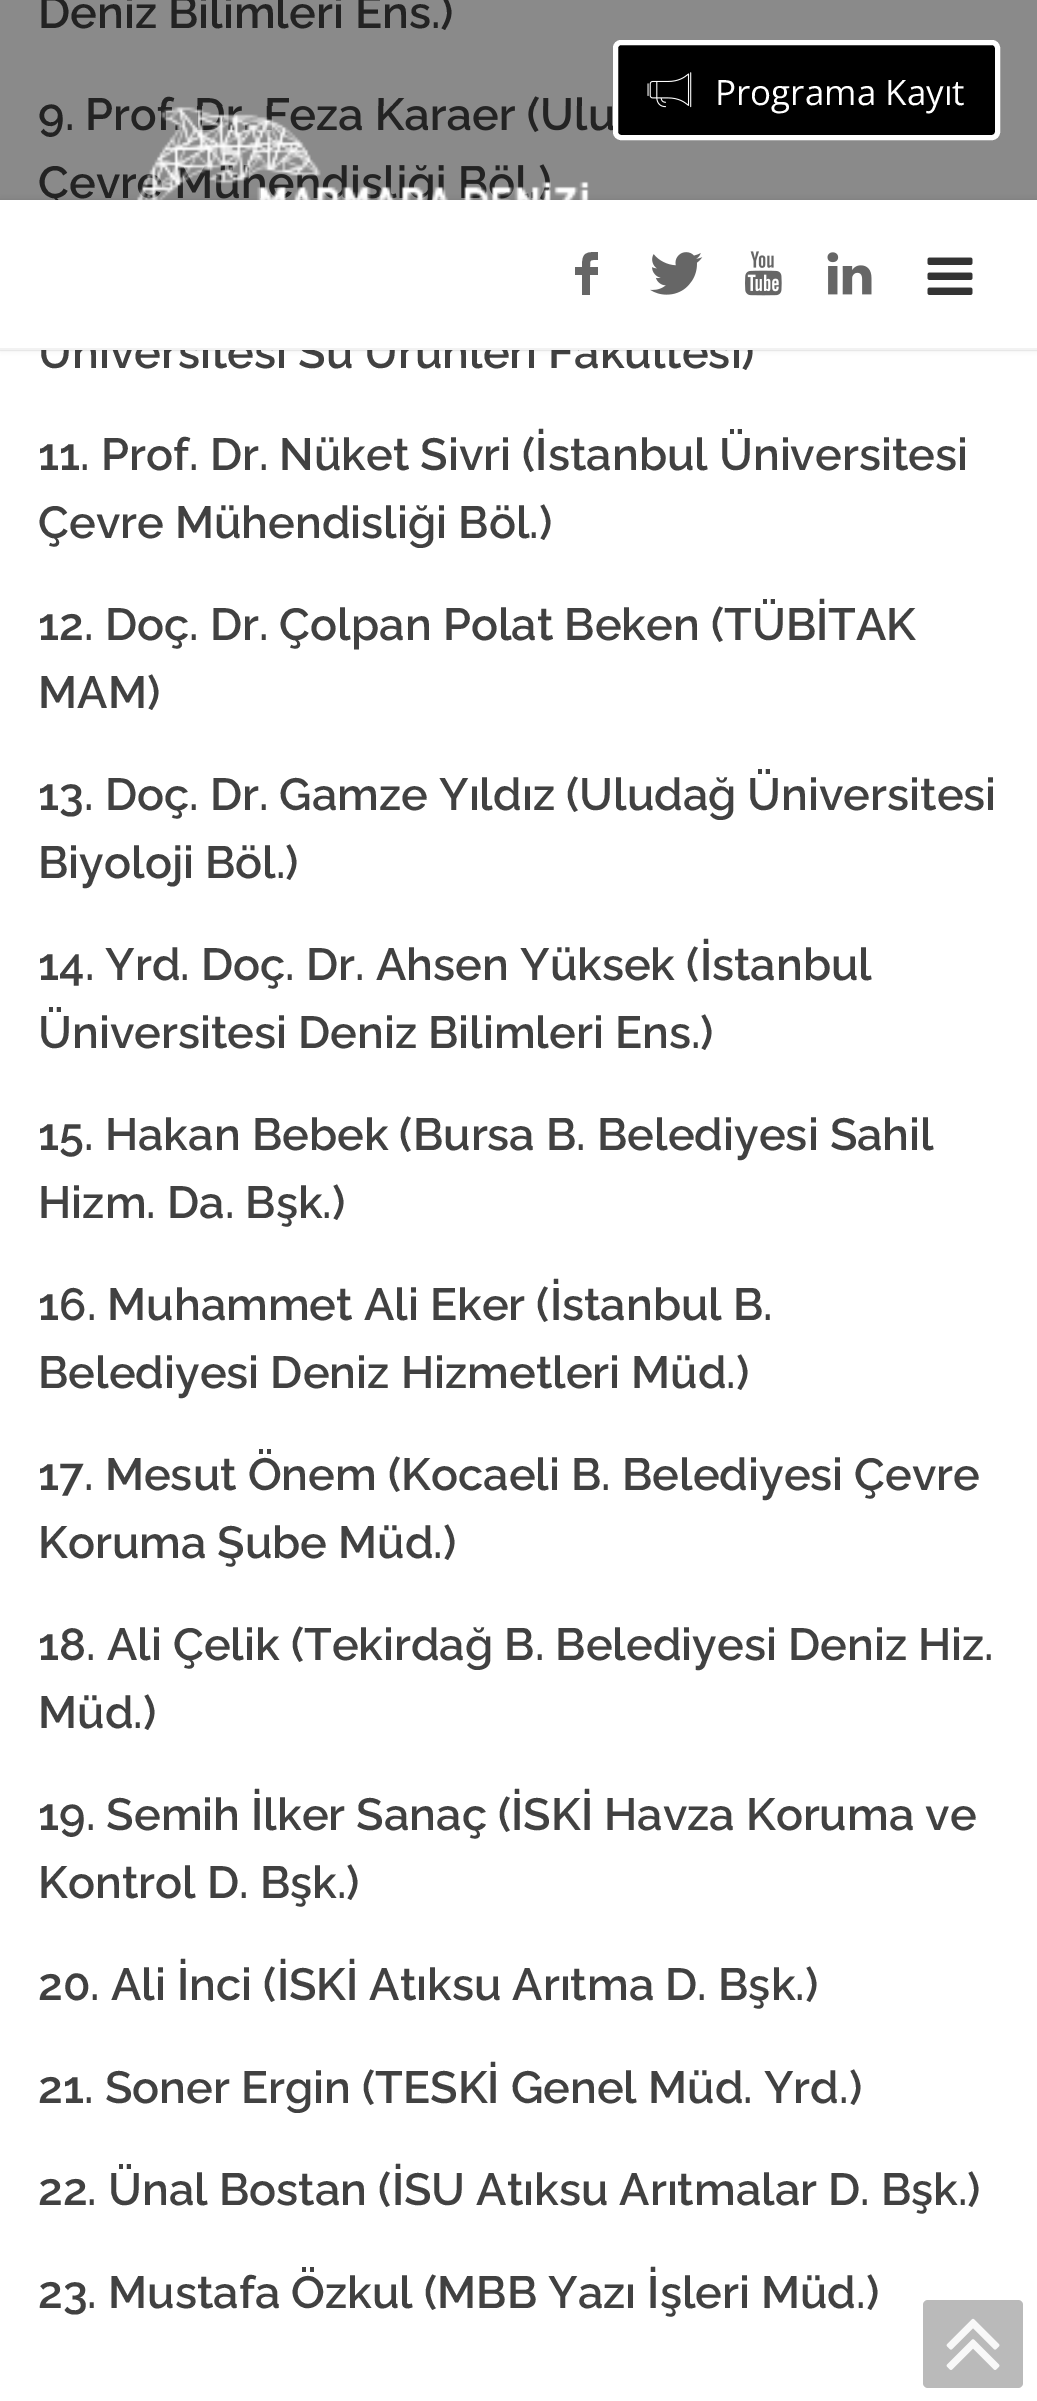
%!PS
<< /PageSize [1037 2401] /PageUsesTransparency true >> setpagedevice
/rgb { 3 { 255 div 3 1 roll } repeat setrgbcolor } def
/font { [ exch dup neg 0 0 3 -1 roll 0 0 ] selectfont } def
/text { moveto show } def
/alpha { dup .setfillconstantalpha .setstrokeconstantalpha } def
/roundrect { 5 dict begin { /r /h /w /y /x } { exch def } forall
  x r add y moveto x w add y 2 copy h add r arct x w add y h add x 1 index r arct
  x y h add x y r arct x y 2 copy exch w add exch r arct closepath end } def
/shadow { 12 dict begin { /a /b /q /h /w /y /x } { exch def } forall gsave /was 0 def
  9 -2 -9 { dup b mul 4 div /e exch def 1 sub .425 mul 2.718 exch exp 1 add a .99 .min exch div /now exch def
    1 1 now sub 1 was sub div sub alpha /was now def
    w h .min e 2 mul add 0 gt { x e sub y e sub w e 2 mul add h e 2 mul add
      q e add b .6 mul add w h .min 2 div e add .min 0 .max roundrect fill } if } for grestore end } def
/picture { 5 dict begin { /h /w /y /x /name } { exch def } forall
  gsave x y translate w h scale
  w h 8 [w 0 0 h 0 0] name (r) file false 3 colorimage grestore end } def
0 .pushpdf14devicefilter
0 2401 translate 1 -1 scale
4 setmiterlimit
255 255 255 rgb
0 0 1037 2401 rectfill
186 186 186 rgb
923 2300 100 88 5 roundrect fill
(img_07.rgb) 946 2318 54 52 picture
/Raleway-SemiBold 45 font
65 65 65 rgb
(Deniz Bilimleri Ens.\)) 38 28 text
(9. Prof. Dr. Feza Karaer \(Ulu) 38 130 text
(Çevre Mühendisliği Böl.\)) 38 198 text
(Üniversitesi Su Ürünleri Fakültesi\)) 38 368 text
(11. Prof. Dr. Nüket Sivri \(İstanbul Üniversitesi) 38 470 text
(Çevre Mühendisliği Böl.\)) 38 538 text
(12. Doç. Dr. Çolpan Polat Beken \(TÜBİTAK) 38 640 text
(MAM\)) 38 708 text
(13. Doç. Dr. Gamze Yıldız \(Uludağ Üniversitesi) 38 810 text
(Biyoloji Böl.\)) 38 878 text
(14. Yrd. Doç. Dr. Ahsen Yüksek \(İstanbul) 38 980 text
(Üniversitesi Deniz Bilimleri Ens.\)) 38 1048 text
(15. Hakan Bebek \(Bursa B. Belediyesi Sahil) 38 1150 text
(Hizm. Da. Bşk.\)) 38 1218 text
(16. Muhammet Ali Eker \(İstanbul B.) 38 1320 text
(Belediyesi Deniz Hizmetleri Müd.\)) 38 1388 text
(17. Mesut Önem \(Kocaeli B. Belediyesi Çevre) 38 1490 text
(Koruma Şube Müd.\)) 38 1558 text
(18. Ali Çelik \(Tekirdağ B. Belediyesi Deniz Hiz.) 38 1660 text
(Müd.\)) 38 1728 text
(19. Semih İlker Sanaç \(İSKİ Havza Koruma ve) 38 1830 text
(Kontrol D. Bşk.\)) 38 1898 text
(20. Ali İnci \(İSKİ Atıksu Arıtma D. Bşk.\)) 38 2000 text
(21. Soner Ergin \(TESKİ Genel Müd. Yrd.\)) 38 2103 text
(22. Ünal Bostan \(İSU Atıksu Arıtmalar D. Bşk.\)) 38 2205 text
(23. Mustafa Özkul \(MBB Yazı İşleri Müd.\)) 38 2308 text
0.46 alpha
0 0 0 rgb
0 0 1037 200 rectfill
1 alpha
615.5 42.5 382 95 5.5 roundrect gsave fill grestore
255 255 255 rgb
5 setlinewidth
stroke
(img_01.rgb) 647 72 45 36 picture
/OpenSans-Regular 35 font
(Programa Kayıt) 715 105 text
(img_02.rgb) 136 106 453 94 picture
0 0 0 rgb
0 200 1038 150 0 2.5 0.1 shadow
255 255 255 rgb
0 200 1037 150 rectfill
0.05 alpha
0 0 0 rgb
0 348 1037 3 rectfill
1 alpha
102 102 102 rgb
575 275 moveto 0 -8 rlineto 7 0 rlineto 0 -14 3 -15 16 -15 rcurveto 0 8 rlineto -8 0 -8 -1 -8 7 rcurveto 8 0 rlineto 0 8 rlineto -8 0 rlineto 0 20 rlineto -8 0 rlineto 0 -20 rlineto closepath fill
(img_03.rgb) 650 252 53 43 picture
(img_04.rgb) 745 251 37 45 picture
(img_05.rgb) 827 252 45 43 picture
(img_06.rgb) 927 257 46 38 picture
.poppdf14devicefilter showpage
